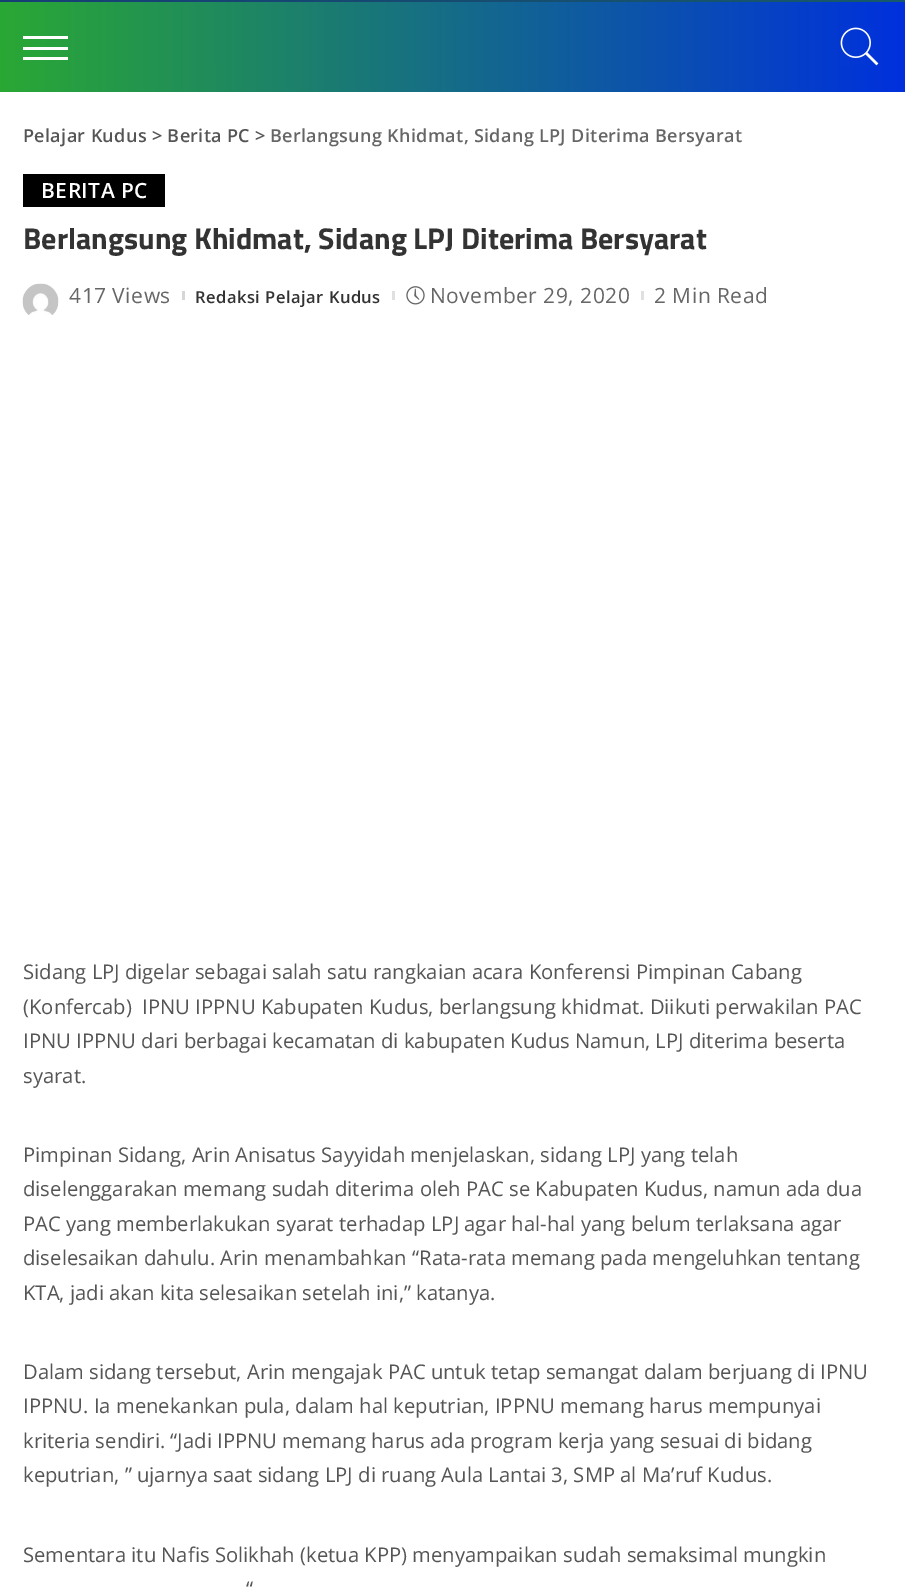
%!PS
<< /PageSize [905 1589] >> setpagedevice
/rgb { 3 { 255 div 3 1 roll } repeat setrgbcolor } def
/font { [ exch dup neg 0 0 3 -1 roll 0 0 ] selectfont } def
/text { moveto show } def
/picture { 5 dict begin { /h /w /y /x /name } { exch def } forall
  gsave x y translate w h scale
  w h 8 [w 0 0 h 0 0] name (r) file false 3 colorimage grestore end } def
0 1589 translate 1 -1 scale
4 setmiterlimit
255 255 255 rgb
0 0 905 1589 rectfill
gsave 0 0 moveto 905 0 rlineto 0 2 rlineto -905 0 rlineto closepath clip newpath
<< /ShadingType 2 /ColorSpace /DeviceRGB /Coords [0 0.8 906 0.7] /Extend [true true] /Function << /FunctionType 2 /Domain [0 1] /C0 [0.09 0.247 0.467] /C1 [0.086 0.353 0.42] /N 1 >> >> shfill grestore
gsave 0 2 moveto 905 0 rlineto 0 90 rlineto -905 0 rlineto closepath clip newpath
<< /ShadingType 2 /ColorSpace /DeviceRGB /Coords [0 47 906 46] /Extend [true true] /Function << /FunctionType 2 /Domain [0 1] /C0 [0.165 0.659 0.204] /C1 [0 0.188 0.867] /N 1 >> >> shfill grestore
23 47 45 3 rectfill
23 36 45 3 rectfill
23 57 45 3 rectfill
(img_01.rgb) 840 27 39 39 picture
0 0 0 rgb
23 174 142 33 rectfill
(img_02.rgb) 22 283 37 32 picture
214 214 214 rgb
182 291 3 9 rectfill
224 224 224 rgb
392 291 3 9 rectfill
(img_03.rgb) 406 286 19 19 picture
641 291 3 9 rectfill
/OpenSans-SemiBold 18 font
85 85 85 rgb
23 142 moveto 0.35 0 (Pelajar Kudus > Berita PC >) ashow
102 102 102 rgb
270 142 moveto 0.35 0 (Berlangsung Khidmat, Sidang LPJ Diterima Bersyarat) ashow
/OpenSans-SemiBold 21 font
255 255 255 rgb
41 198 moveto 0.5 0 (BERITA PC) ashow
/TitilliumWeb-Bold 30 font
51 51 51 rgb
(Berlangsung Khidmat, Sidang LPJ Diterima Bersyarat) 23 249 text
/OpenSans-Regular 21 font
102 102 102 rgb
69 303 moveto 0.5 0 (417 Views) ashow
/OpenSans-SemiBold 16.5 font
51 51 51 rgb
195 303 moveto 0.5 0 (Redaksi Pelajar Kudus) ashow
/OpenSans-Regular 21 font
102 102 102 rgb
430 303 moveto 0.5 0 (November 29, 2020) ashow
654 303 moveto 0.5 0 (2 Min Read) ashow
/OpenSans-Regular 20.25 font
85 85 85 rgb
(Sidang LPJ digelar sebagai salah satu rangkaian acara Konferensi Pimpinan Cabang) 23 979 text
(\(Konfercab\)  IPNU IPPNU Kabupaten Kudus, berlangsung khidmat. Diikuti perwakilan PAC) 23 1014 text
(IPNU IPPNU dari berbagai kecamatan di kabupaten Kudus Namun, LPJ diterima beserta) 23 1048 text
(syarat.) 23 1083 text
(Pimpinan Sidang, Arin Anisatus Sayyidah menjelaskan, sidang LPJ yang telah) 23 1162 text
(diselenggarakan memang sudah diterima oleh PAC se Kabupaten Kudus, namun ada dua) 23 1196 text
(PAC yang memberlakukan syarat terhadap LPJ agar hal-hal yang belum terlaksana agar) 23 1231 text
(diselesaikan dahulu. Arin menambahkan “Rata-rata memang pada mengeluhkan tentang) 23 1265 text
(KTA, jadi akan kita selesaikan setelah ini,” katanya.) 23 1300 text
(Dalam sidang tersebut, Arin mengajak PAC untuk tetap semangat dalam berjuang di IPNU) 23 1379 text
(IPPNU. Ia menekankan pula, dalam hal keputrian, IPPNU memang harus mempunyai) 23 1413 text
(kriteria sendiri. “Jadi IPPNU memang harus ada program kerja yang sesuai di bidang) 23 1448 text
(keputrian, ” ujarnya saat sidang LPJ di ruang Aula Lantai 3, SMP al Ma’ruf Kudus.) 23 1482 text
(Sementara itu Nafis Solikhah \(ketua KPP\) menyampaikan sudah semaksimal mungkin) 23 1562 text
(“) 246 1596 text
showpage
